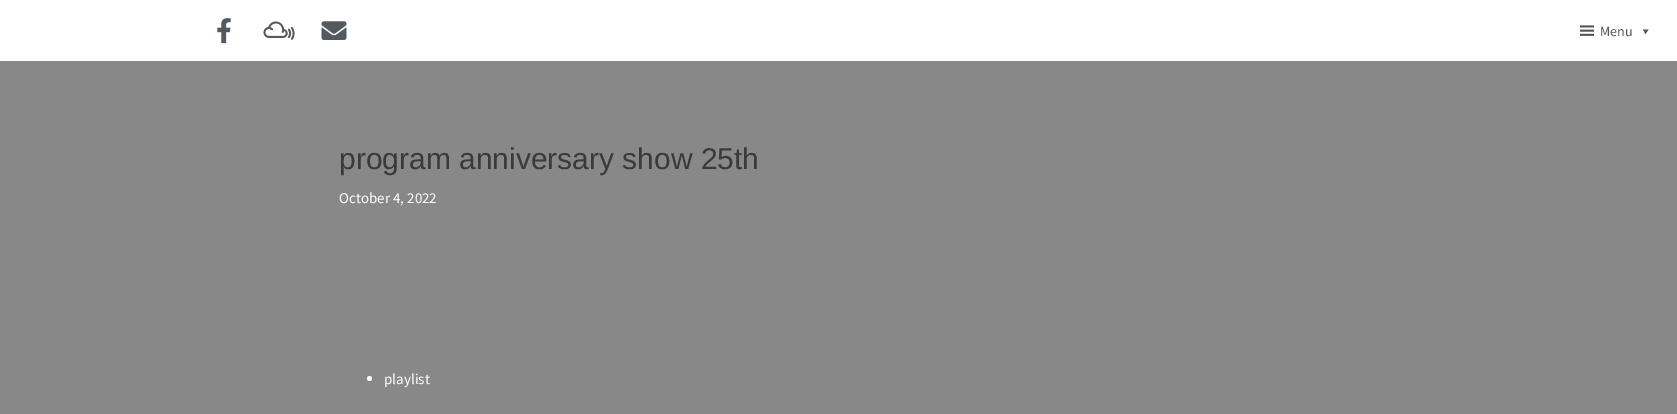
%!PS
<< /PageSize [1677 414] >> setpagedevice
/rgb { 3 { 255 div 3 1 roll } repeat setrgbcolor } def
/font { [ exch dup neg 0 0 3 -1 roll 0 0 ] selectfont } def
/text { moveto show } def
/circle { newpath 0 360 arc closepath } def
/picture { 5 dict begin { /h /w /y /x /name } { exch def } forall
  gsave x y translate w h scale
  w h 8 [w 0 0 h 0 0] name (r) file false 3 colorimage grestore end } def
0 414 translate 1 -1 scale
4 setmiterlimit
136 136 136 rgb
0 0 1677 414 rectfill
255 255 255 rgb
0 0 1677 61 rectfill
(img_01.rgb) 217 18 14 26 picture
(img_02.rgb) 263 21 32 19 picture
(img_03.rgb) 321 21 26 19 picture
(img_04.rgb) 1580 25 14 11 picture
85 85 85 rgb
1648.5 29.5 moveto -3 4.5 rlineto -2.5 -4.5 rlineto closepath fill
254 254 254 rgb
369.5 378.5 2.5 circle fill
/SourceSansPro-Regular 14 font
85 85 85 rgb
(Menu) 1600 36 text
/LiberationSans-Regular 30 font
58 58 58 rgb
(program anniversary show 25th) 339 169 text
/SourceSansPro-Regular 15 font
255 255 255 rgb
(October 4, 2022) 339 203 text
(playlist) 384 384 text
showpage
